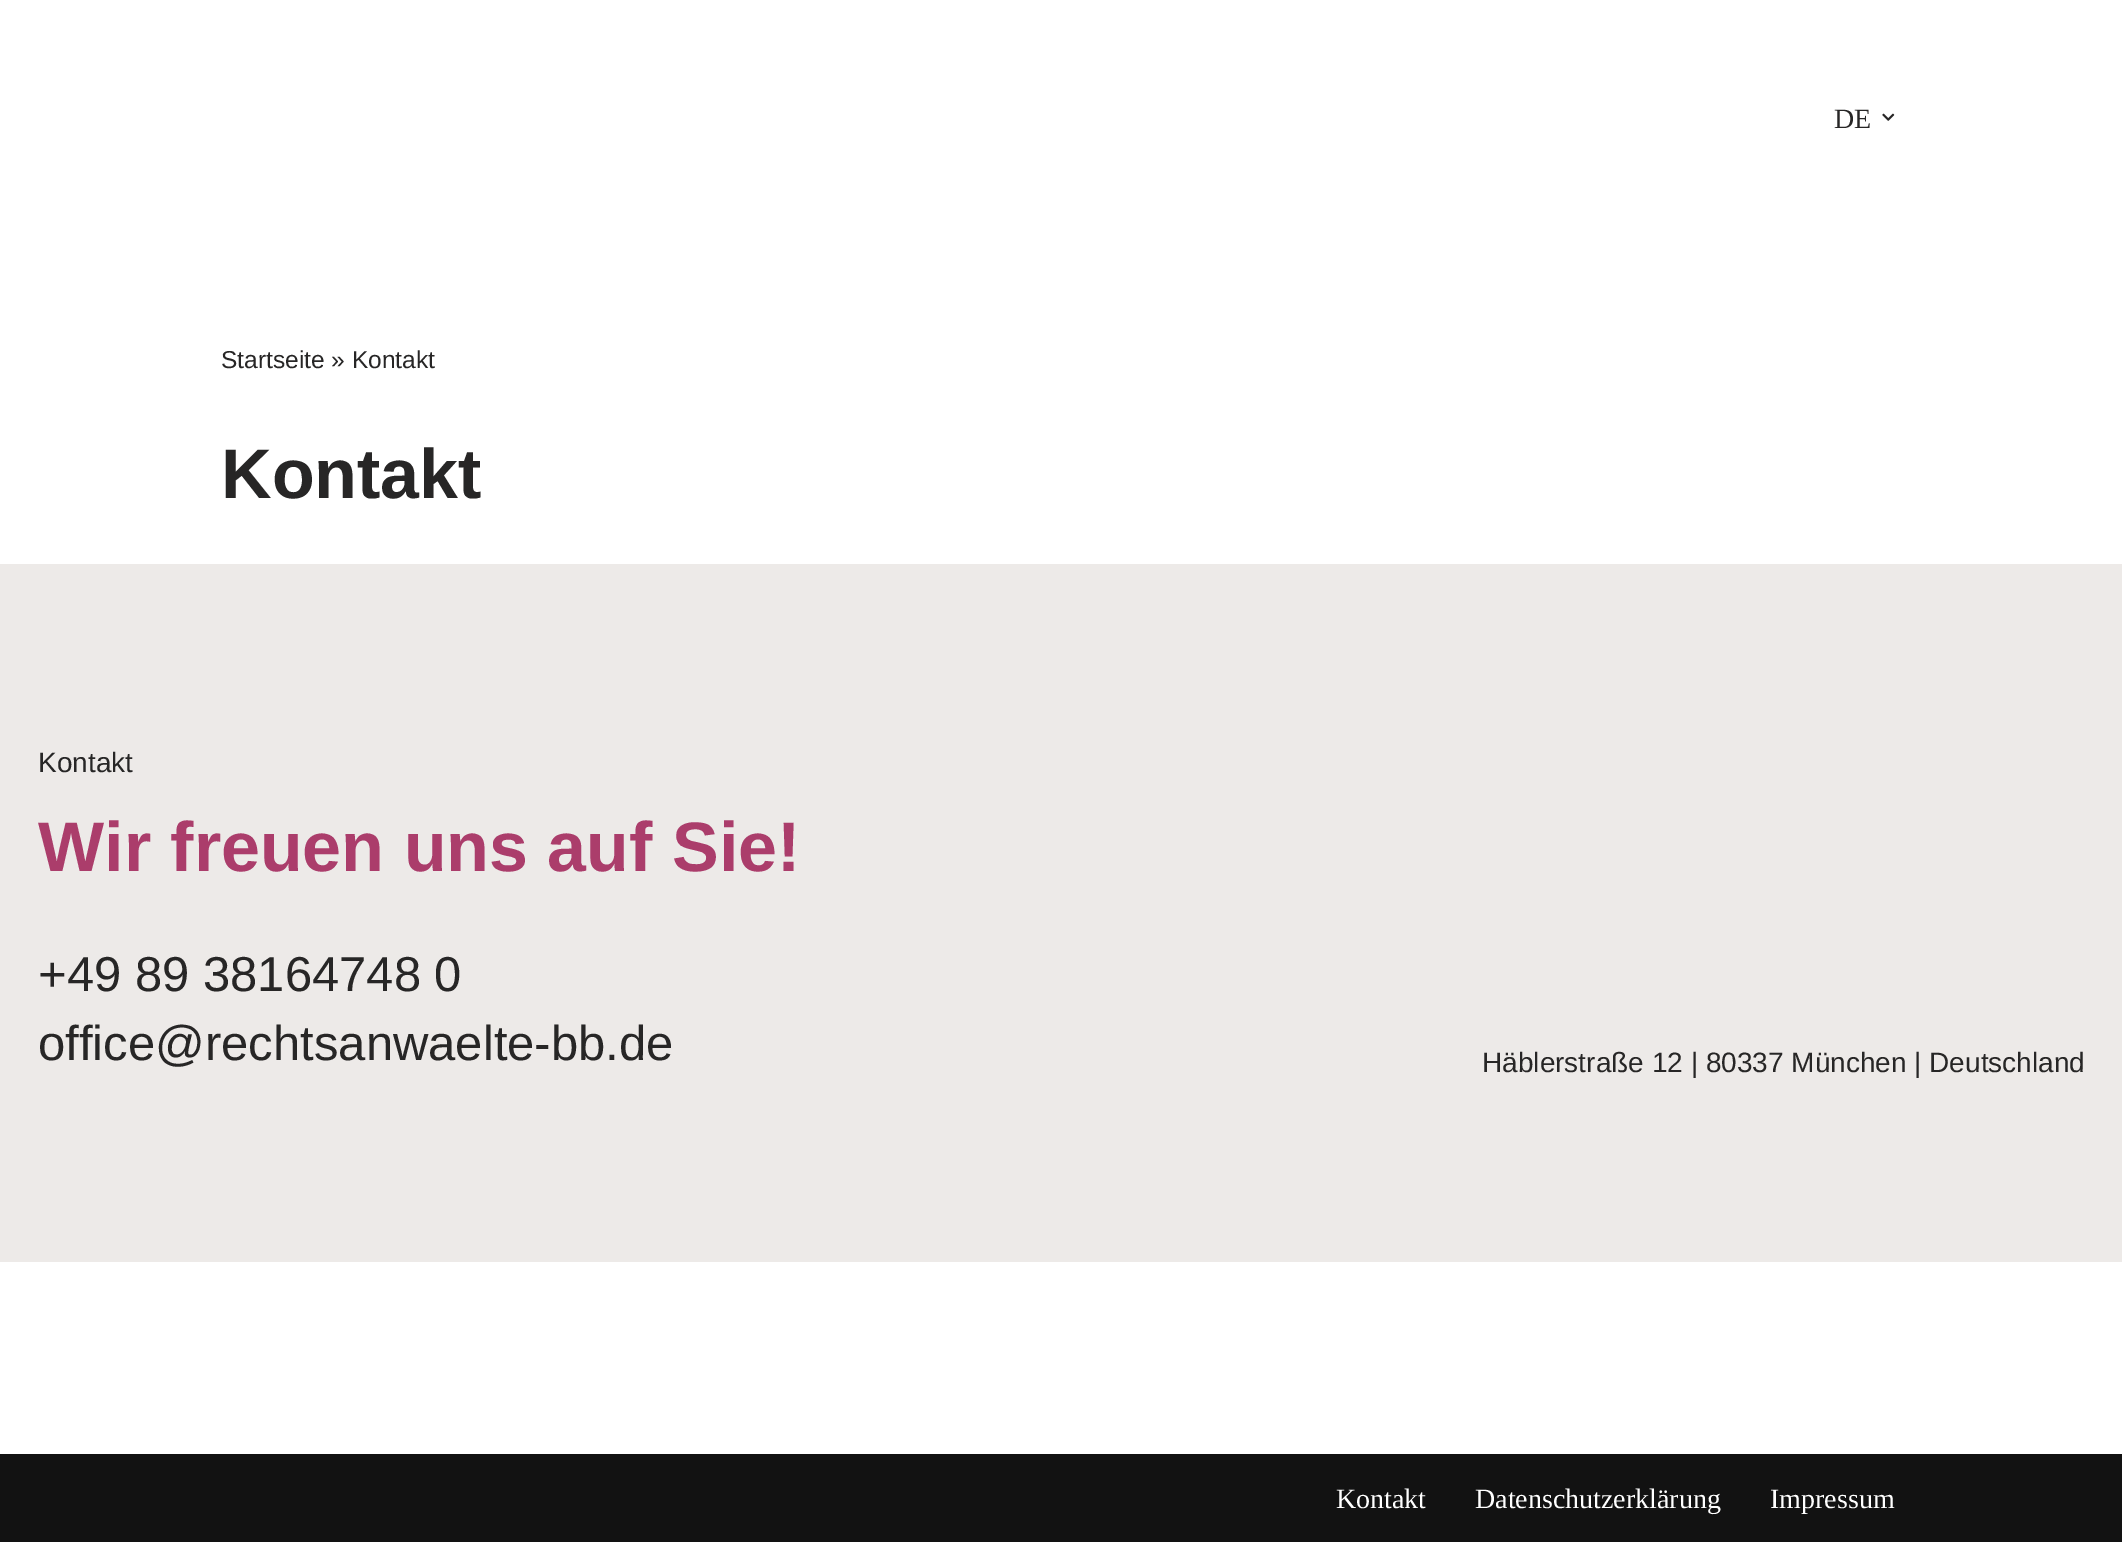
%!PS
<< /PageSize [2122 1542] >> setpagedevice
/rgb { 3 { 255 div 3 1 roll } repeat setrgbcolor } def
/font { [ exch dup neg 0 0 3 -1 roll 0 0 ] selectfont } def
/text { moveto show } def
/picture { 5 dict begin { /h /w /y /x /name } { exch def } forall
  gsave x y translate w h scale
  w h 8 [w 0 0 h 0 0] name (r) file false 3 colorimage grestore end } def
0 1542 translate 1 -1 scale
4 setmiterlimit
255 255 255 rgb
0 0 2122 1542 rectfill
(img_01.rgb) 1882 113 13 8 picture
237 234 232 rgb
0 564 2122 698 rectfill
18 18 18 rgb
0 1454 2122 88 rectfill
/LiberationSerif-Regular 28 font
39 38 38 rgb
(DE) 1834 128 text
/LiberationSans-Regular 24.5 font
(Startseite » Kontakt) 221 368 text
/LiberationSans-Bold 70 font
(Kontakt) 221 498 text
/LiberationSans-Regular 28 font
(Kontakt) 38 772 text
/LiberationSans-Bold 70 font
171 61 107 rgb
(Wir freuen uns auf Sie!) 38 871 text
/LiberationSans-Regular 49 font
39 38 38 rgb
(+49 89 38164748 0) 38 991 text
(office@rechtsanwaelte-bb.de) 38 1060 text
/LiberationSans-Regular 28 font
(Häblerstraße 12 | 80337 München | Deutschland) 1482 1072 text
/LiberationSerif-Regular 28 font
255 255 255 rgb
(Kontakt) 1336 1508 text
(Datenschutzerklärung) 1475 1508 text
(Impressum) 1770 1508 text
showpage
